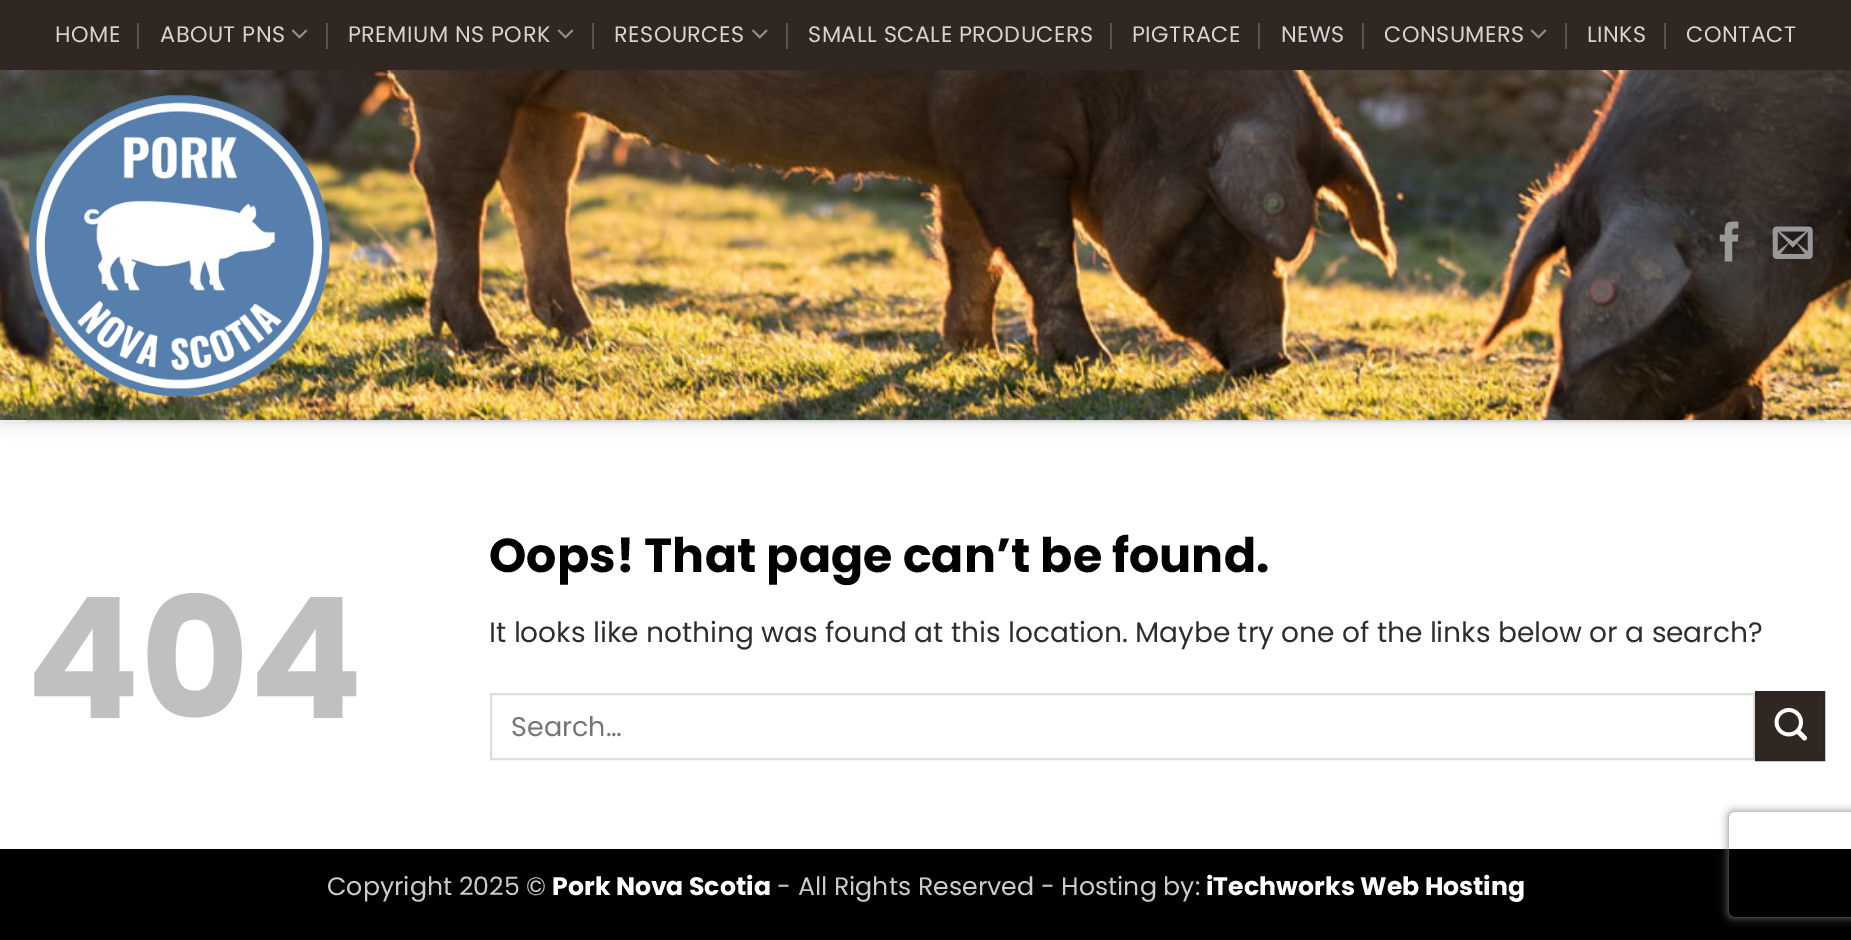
%!PS
<< /PageSize [1851 940] /PageUsesTransparency true >> setpagedevice
/rgb { 3 { 255 div 3 1 roll } repeat setrgbcolor } def
/font { [ exch dup neg 0 0 3 -1 roll 0 0 ] selectfont } def
/text { moveto show } def
/alpha { dup .setfillconstantalpha .setstrokeconstantalpha } def
/roundrect { 5 dict begin { /r /h /w /y /x } { exch def } forall
  x r add y moveto x w add y 2 copy h add r arct x w add y h add x 1 index r arct
  x y h add x y r arct x y 2 copy exch w add exch r arct closepath end } def
/shadow { 12 dict begin { /a /b /q /h /w /y /x } { exch def } forall gsave /was 0 def
  9 -2 -9 { dup b mul 4 div /e exch def 1 sub .425 mul 2.718 exch exp 1 add a .99 .min exch div /now exch def
    1 1 now sub 1 was sub div sub alpha /was now def
    w h .min e 2 mul add 0 gt { x e sub y e sub w e 2 mul add h e 2 mul add
      q e add b .6 mul add w h .min 2 div e add .min 0 .max roundrect fill } if } for grestore end } def
/picture { 5 dict begin { /h /w /y /x /name } { exch def } forall
  gsave x y translate w h scale
  w h 8 [w 0 0 h 0 0] name (r) file false 3 colorimage grestore end } def
0 .pushpdf14devicefilter
0 940 translate 1 -1 scale
4 setmiterlimit
2 1 1 rgb
0 0 1851 940 rectfill
255 255 255 rgb
0 420 1851 429 rectfill
0 0 0 rgb
2 2 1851 420 0 9 0.15 shadow
48 39 34 rgb
0 0 1851 70 rectfill
89 82 78 rgb
137 23 2 26 rectfill
(img_01.rgb) 291 29 17 10 picture
326 23 2 26 rectfill
(img_01.rgb) 557 29 17 10 picture
592 23 2 26 rectfill
(img_02.rgb) 752 29 16 10 picture
786 23 2 26 rectfill
1110 23 2 26 rectfill
1258 23 2 26 rectfill
1362 23 2 26 rectfill
(img_01.rgb) 1530 29 17 10 picture
1565 23 2 26 rectfill
1664 23 2 26 rectfill
(img_03.rgb) 0 70 1851 350 picture
(img_04.rgb) 28 95 302 302 picture
(img_05.rgb) 1719 221 20 41 picture
(img_06.rgb) 1772 226 41 33 picture
215 215 215 rgb
26 420 1799 2 rectfill
221 221 221 rgb
2 setlinewidth
491 694 1263 65 rectstroke
48 39 34 rgb
1756 692 moveto 68 0 rlineto 0 68 rlineto -68 0 rlineto closepath gsave fill grestore
46 37 32 rgb
stroke
(img_07.rgb) 1774 707 34 34 picture
gsave
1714 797 moveto 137 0 rlineto 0 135 rlineto -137 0 rlineto closepath 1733 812 moveto 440 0 rlineto 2 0 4 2 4 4 rcurveto 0 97 rlineto 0 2 -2 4 -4 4 rcurveto -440 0 rlineto -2 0 -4 -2 -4 -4 rcurveto 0 -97 rlineto 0 -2 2 -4 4 -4 rcurveto closepath eoclip newpath
128 128 128 rgb
1729 812 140 105 4 4.5 1 shadow
grestore
/Poppins-Regular 22.4 font
214 212 211 rgb
55 42 moveto 0.45 0 (HOME) ashow
160 42 moveto 0.45 0 (ABOUT PNS) ashow
348 42 moveto 0.45 0 (PREMIUM NS PORK) ashow
614 42 moveto 0.45 0 (RESOURCES) ashow
808 42 moveto 0.45 0 (SMALL SCALE PRODUCERS) ashow
1132 42 moveto 0.45 0 (PIGTRACE) ashow
1281 42 moveto 0.45 0 (NEWS) ashow
1384 42 moveto 0.45 0 (CONSUMERS) ashow
1587 42 moveto 0.45 0 (LINKS) ashow
1686 42 moveto 0.45 0 (CONTACT) ashow
/Poppins-Bold 168 font
192 192 192 rgb
(404) 26 718 text
/Poppins-Bold 47.6 font
2 2 2 rgb
(Oops! That page can’t be found.) 489 572 text
/Poppins-Regular 28 font
45 45 45 rgb
(It looks like nothing was found at this location. Maybe try one of the links below or a search?) 489 642 text
/Poppins-Regular 27 font
117 117 117 rgb
(Search…) 511 736 text
/Poppins-Regular 25.25 font
204 204 204 rgb
(Copyright 2025 ©) 327 895 text
/Poppins-Bold 25.25 font
255 255 255 rgb
(Pork Nova Scotia) 552 895 text
/Poppins-Regular 25.25 font
204 204 204 rgb
(- All Rights Reserved - Hosting by:) 777 895 text
/Poppins-Bold 25.25 font
255 255 255 rgb
(iTechworks Web Hosting) 1206 895 text
.poppdf14devicefilter showpage
